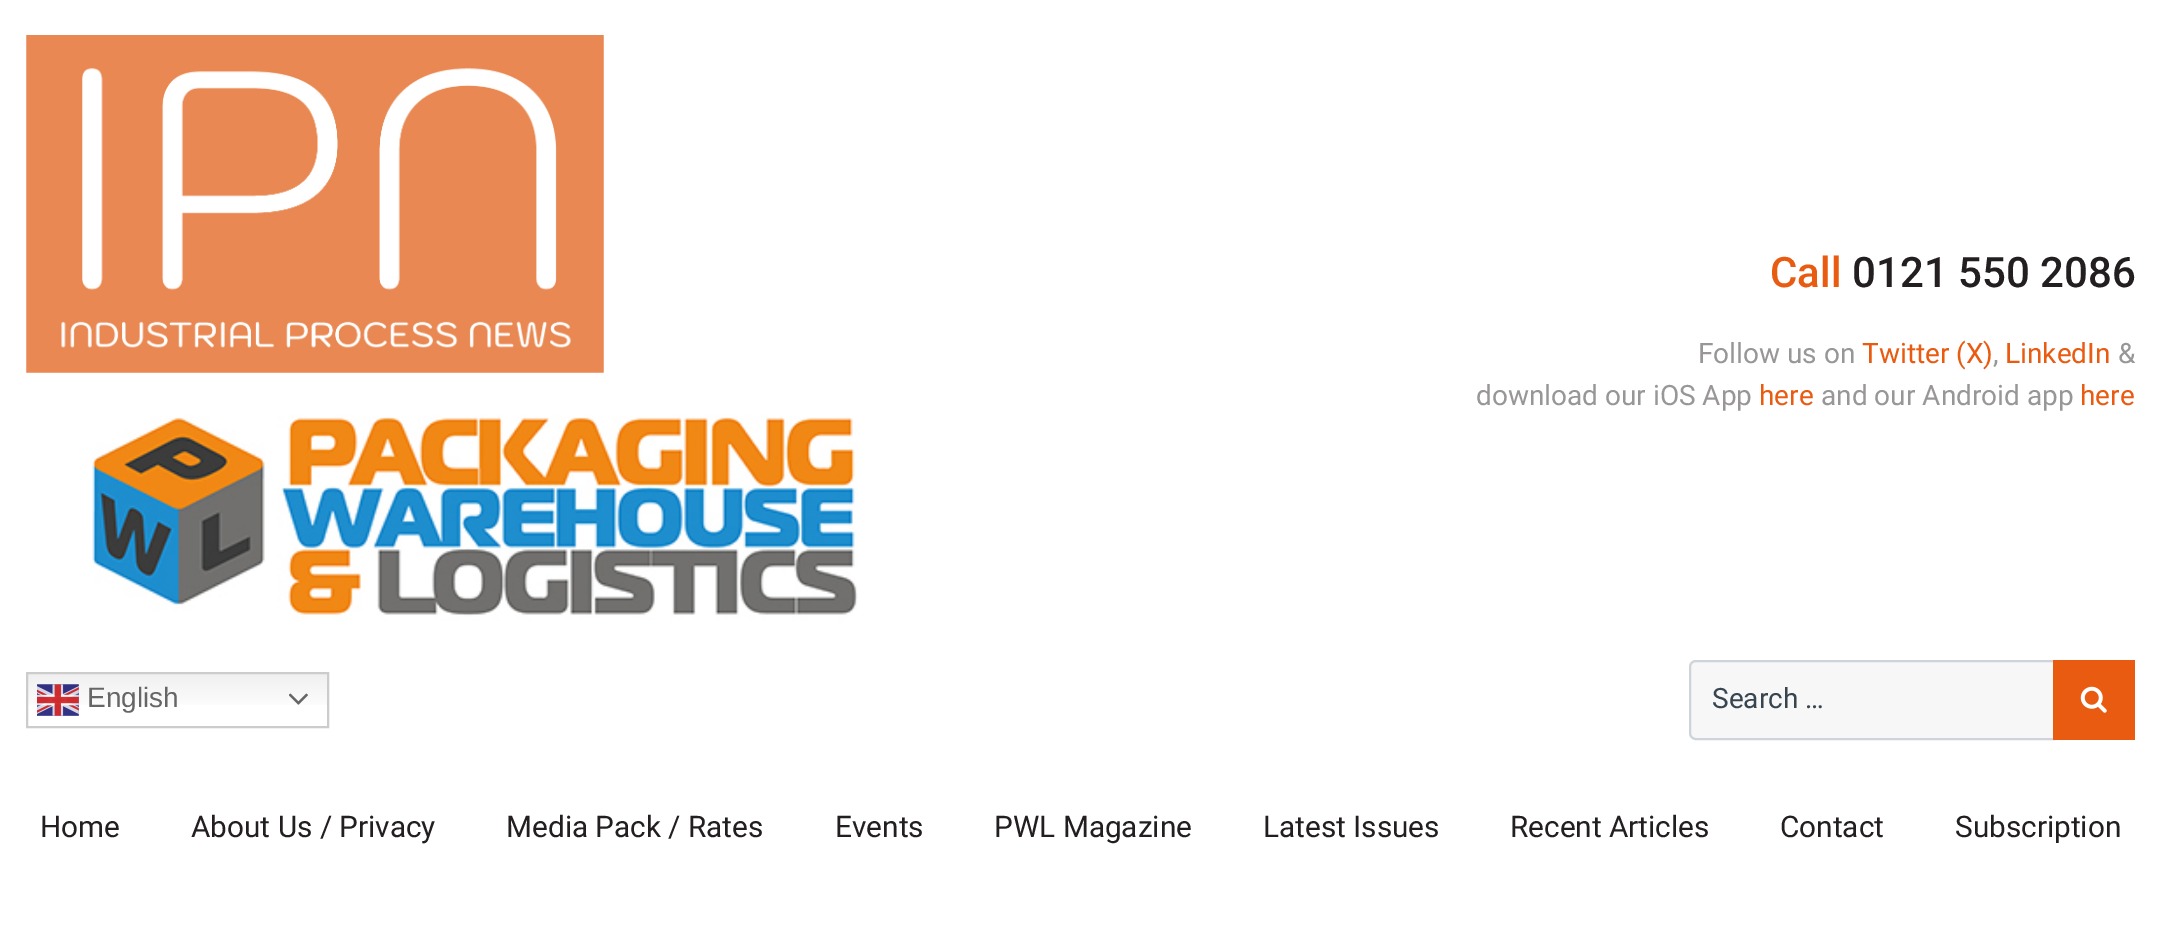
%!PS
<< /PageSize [2161 933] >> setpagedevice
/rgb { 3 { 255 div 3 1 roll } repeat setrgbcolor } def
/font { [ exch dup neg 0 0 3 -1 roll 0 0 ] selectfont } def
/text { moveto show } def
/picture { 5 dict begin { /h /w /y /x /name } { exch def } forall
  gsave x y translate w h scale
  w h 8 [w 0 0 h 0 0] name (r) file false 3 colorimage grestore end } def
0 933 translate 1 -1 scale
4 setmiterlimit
255 255 255 rgb
0 0 2161 933 rectfill
(img_01.rgb) 26 35 578 338 picture
(img_02.rgb) 92 415 766 206 picture
gsave 28 674 moveto 299 0 rlineto 0 31 rlineto -299 0 rlineto closepath clip newpath
<< /ShadingType 2 /ColorSpace /DeviceRGB /Coords [178 672 178 728] /Extend [true true] /Function << /FunctionType 3 /Domain [0 1] /Functions [<< /FunctionType 2 /Domain [0 1] /C0 [0.937 0.937 0.937] /C1 [1 1 1] /N 1 >> << /FunctionType 2 /Domain [0 1] /C0 [1 1 1] /C1 [1 1 1] /N 1 >>] /Bounds [0.7] /Encode [0 1 0 1] >> >> shfill grestore
204 204 204 rgb
2 setlinewidth
27 673 301 54 rectstroke
(img_03.rgb) 37 684 42 32 picture
(img_04.rgb) 289 693 19 12 picture
247 247 247 rgb
1696 661 moveto 358 0 rlineto 0 78 rlineto -358 0 rlineto -3.5 0 -6 -2.5 -6 -6 rcurveto 0 -66 rlineto 0 -3.5 2.5 -6 6 -6 rcurveto closepath gsave fill grestore
206 212 218 rgb
stroke
233 91 16 rgb
2053 660 82 80 rectfill
(img_05.rgb) 2080 686 27 27 picture
/Roboto-Medium 42 font
(Call) 1770 287 text
35 31 32 rgb
(0121 550 2086) 1852 287 text
/Roboto-Regular 28 font
152 150 150 rgb
(Follow us on) 1698 363 text
233 91 16 rgb
(Twitter \(X\)) 1862 363 text
152 150 150 rgb
(,) 1993 363 text
233 91 16 rgb
(LinkedIn) 2005 363 text
152 150 150 rgb
(&) 2118 363 text
(download our iOS App) 1476 405 text
233 91 16 rgb
(here) 1759 405 text
152 150 150 rgb
(and our Android app) 1821 405 text
233 91 16 rgb
(here) 2080 405 text
/LiberationSans-Regular 28 font
102 102 102 rgb
(English) 87 707 text
/Roboto-Regular 28 font
55 69 80 rgb
(Search …) 1712 708 text
/Roboto-Regular 29.75 font
35 31 32 rgb
(Home) 40 837 text
(About Us / Privacy) 191 837 text
(Media Pack / Rates) 506 837 text
(Events) 835 837 text
(PWL Magazine) 994 837 text
(Latest Issues) 1263 837 text
(Recent Articles) 1510 837 text
(Contact) 1780 837 text
(Subscription) 1955 837 text
showpage
